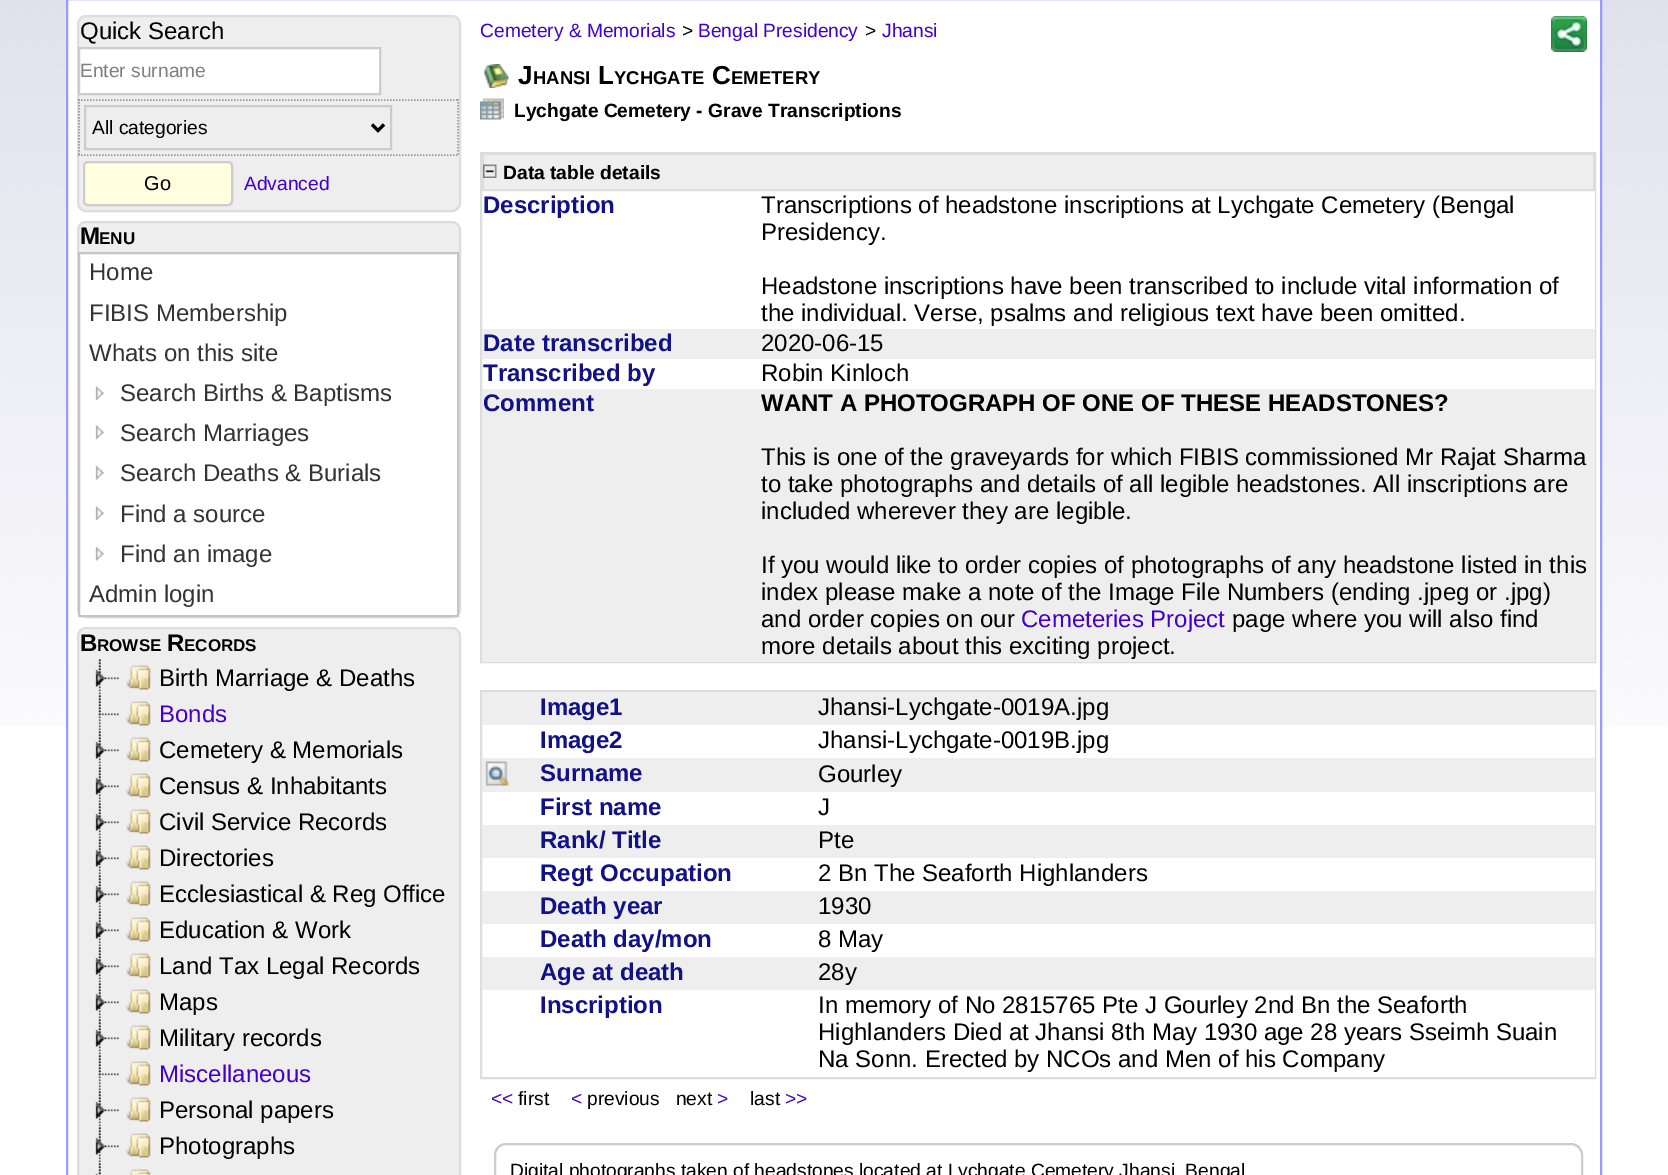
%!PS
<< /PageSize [1668 1175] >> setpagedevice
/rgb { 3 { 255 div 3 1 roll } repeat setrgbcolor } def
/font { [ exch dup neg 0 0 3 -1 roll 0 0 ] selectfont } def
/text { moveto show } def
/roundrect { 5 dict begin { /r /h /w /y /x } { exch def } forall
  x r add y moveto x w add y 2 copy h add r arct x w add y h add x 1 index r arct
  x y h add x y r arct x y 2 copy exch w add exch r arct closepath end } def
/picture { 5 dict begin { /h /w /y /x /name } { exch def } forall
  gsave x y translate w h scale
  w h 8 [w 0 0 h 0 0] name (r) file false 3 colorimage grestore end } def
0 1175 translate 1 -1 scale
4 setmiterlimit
255 255 255 rgb
0 0 1668 1175 rectfill
(img_01.rgb) 0 0 1668 727 picture
68 0 1532 727 rectfill
153 153 255 rgb
2 setlinewidth
67 -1 1534 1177 rectstroke
238 238 238 rgb
78 16 382 195 8 roundrect gsave fill grestore
221 221 221 rgb
stroke
255 255 255 rgb
79 48 moveto 301 0 rlineto 0 46 rlineto -301 0 rlineto closepath gsave fill grestore
204 204 204 rgb
stroke
153 153 153 rgb
1.5 setlinewidth
[1.5 1.5] 0 setdash
78 100 moveto 381 0 rlineto stroke
458 99 moveto 0 57 rlineto stroke
78 155 moveto 381 0 rlineto stroke
79 99 moveto 0 57 rlineto stroke
204 204 204 rgb
2 setlinewidth
[] 0 setdash
85 106 306 43 rectstroke
0 0 0 rgb
3 setlinewidth
372 124.5 moveto 6 6 rlineto 6 -6 rlineto stroke
255 255 223 rgb
84 162 148 43 4 roundrect gsave fill grestore
204 204 204 rgb
2 setlinewidth
stroke
238 238 238 rgb
78 222 382 395 8 roundrect gsave fill grestore
221 221 221 rgb
stroke
255 255 255 rgb
79 253 moveto 379 0 rlineto 0 363 rlineto -379 0 rlineto closepath gsave fill grestore
197 197 197 rgb
stroke
(img_02.rgb) 95 386 9 15 picture
(img_02.rgb) 95 425 9 15 picture
(img_03.rgb) 95 465 9 15 picture
(img_02.rgb) 95 506 9 15 picture
(img_03.rgb) 95 546 9 15 picture
238 238 238 rgb
78 628 382 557 8 roundrect gsave fill grestore
221 221 221 rgb
stroke
(img_04.rgb) 98 659 3 36 picture
(img_05.rgb) 95 659 24 28 picture
(img_06.rgb) 126 665 25 25 picture
(img_04.rgb) 98 695 3 36 picture
(img_07.rgb) 98 695 21 21 picture
(img_06.rgb) 126 701 25 25 picture
(img_04.rgb) 98 731 3 36 picture
(img_05.rgb) 95 731 24 28 picture
(img_06.rgb) 126 737 25 25 picture
(img_04.rgb) 98 767 3 36 picture
(img_05.rgb) 95 767 24 28 picture
(img_06.rgb) 126 773 25 25 picture
(img_04.rgb) 98 803 3 36 picture
(img_05.rgb) 95 803 24 28 picture
(img_06.rgb) 126 809 25 25 picture
(img_04.rgb) 98 839 3 36 picture
(img_05.rgb) 95 839 24 28 picture
(img_06.rgb) 126 845 25 25 picture
(img_04.rgb) 98 875 3 36 picture
(img_05.rgb) 95 875 24 28 picture
(img_06.rgb) 126 881 25 25 picture
(img_04.rgb) 98 911 3 36 picture
(img_05.rgb) 95 911 24 28 picture
(img_06.rgb) 126 917 25 25 picture
(img_04.rgb) 98 947 3 36 picture
(img_05.rgb) 95 947 24 28 picture
(img_06.rgb) 126 953 25 25 picture
(img_04.rgb) 98 983 3 36 picture
(img_05.rgb) 95 983 24 28 picture
(img_06.rgb) 126 989 25 25 picture
(img_04.rgb) 98 1019 3 36 picture
(img_05.rgb) 95 1019 24 28 picture
(img_06.rgb) 126 1025 25 25 picture
(img_04.rgb) 98 1055 3 36 picture
(img_07.rgb) 98 1055 21 21 picture
(img_06.rgb) 126 1061 25 25 picture
(img_04.rgb) 98 1091 3 36 picture
(img_05.rgb) 95 1091 24 28 picture
(img_06.rgb) 126 1097 25 25 picture
(img_04.rgb) 98 1127 3 36 picture
(img_05.rgb) 95 1127 24 28 picture
(img_06.rgb) 126 1133 25 25 picture
(img_08.rgb) 98 1163 3 12 picture
(img_09.rgb) 95 1163 6 12 picture
(img_10.rgb) 130 1169 21 6 picture
(img_11.rgb) 1551 16 36 36 picture
(img_12.rgb) 484 64 25 24 picture
(img_13.rgb) 480 98 24 22 picture
481 153 1114 509 rectstroke
238 238 238 rgb
483 154 moveto 1111 0 rlineto 0 36 rlineto -1111 0 rlineto closepath gsave fill grestore
221 221 221 rgb
stroke
(img_14.rgb) 483 164 14 14 picture
255 255 255 rgb
1594 191 1 138 rectfill
238 238 238 rgb
482 329 1113 30 rectfill
255 255 255 rgb
1594 359 1 30 rectfill
238 238 238 rgb
482 389 1113 273 rectfill
221 221 221 rgb
481 691 1114 387 rectstroke
238 238 238 rgb
482 692 1113 33 rectfill
255 255 255 rgb
1594 725 1 33 rectfill
238 238 238 rgb
482 758 1113 34 rectfill
(img_15.rgb) 485 761 24 25 picture
255 255 255 rgb
1594 792 1 33 rectfill
238 238 238 rgb
482 825 1113 33 rectfill
255 255 255 rgb
1594 858 1 33 rectfill
238 238 238 rgb
482 891 1113 33 rectfill
255 255 255 rgb
1594 924 1 33 rectfill
238 238 238 rgb
482 957 1113 33 rectfill
255 255 255 rgb
1594 990 1 87 rectfill
204 204 204 rgb
495 1144 1087 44 11 roundrect stroke
/LiberationSans-Regular 24 font
0 0 0 rgb
(Quick Search) 80 39 text
/LiberationSans-Regular 19.2 font
128 128 128 rgb
(Enter surname) 80 77 text
0 0 0 rgb
(All categories) 92 134 text
/LiberationSans-Regular 20 font
(Go) 144 190 text
/LiberationSans-Regular 19.2 font
68 0 200 rgb
(Advanced) 244 190 text
/LiberationSans-Bold 24 font
0 0 0 rgb
(M) 80 244 text
/LiberationSans-Bold 17 font
(ENU) 99 244 text
/LiberationSans-Regular 24 font
51 51 51 rgb
(Home) 89 280 text
(FIBIS Membership) 89 321 text
(Whats on this site) 89 361 text
(Search Births & Baptisms) 120 401 text
(Search Marriages) 120 441 text
(Search Deaths & Burials) 120 481 text
(Find a source) 120 522 text
(Find an image) 120 562 text
(Admin login) 89 602 text
/LiberationSans-Bold 24 font
0 0 0 rgb
(B) 80 651 text
/LiberationSans-Bold 17 font
(ROWSE) 97 651 text
/LiberationSans-Bold 24 font
(R) 167 651 text
/LiberationSans-Bold 17 font
(ECORDS) 184 651 text
/LiberationSans-Regular 24 font
(Birth Marriage & Deaths) 159 686 text
68 0 200 rgb
(Bonds) 159 722 text
0 0 0 rgb
(Cemetery & Memorials) 159 758 text
(Census & Inhabitants) 159 794 text
(Civil Service Records) 159 830 text
(Directories) 159 866 text
(Ecclesiastical & Reg Office) 159 902 text
(Education & Work) 159 938 text
(Land Tax Legal Records) 159 974 text
(Maps) 159 1010 text
(Military records) 159 1046 text
68 0 200 rgb
(Miscellaneous) 159 1082 text
0 0 0 rgb
(Personal papers) 159 1118 text
(Photographs) 159 1154 text
/LiberationSans-Regular 19.2 font
68 0 200 rgb
(Cemetery & Memorials) 480 37 text
0 0 0 rgb
(>) 682 37 text
68 0 200 rgb
(Bengal Presidency) 698 37 text
0 0 0 rgb
(>) 865 37 text
68 0 200 rgb
(Jhansi) 882 37 text
/LiberationSans-Bold 26 font
0 0 0 rgb
(J) 518 84 text
/LiberationSans-Bold 18.5 font
(HANSI) 533 84 text
/LiberationSans-Bold 26 font
(L) 598 84 text
/LiberationSans-Bold 18.5 font
(YCHGATE) 614 84 text
/LiberationSans-Bold 26 font
(C) 712 84 text
/LiberationSans-Bold 18.5 font
(EMETERY) 731 84 text
/LiberationSans-Bold 19.2 font
(Lychgate Cemetery - Grave Transcriptions) 514 117 text
(Data table details) 503 179 text
/LiberationSans-Bold 24 font
17 17 136 rgb
(Description) 483 213 text
/LiberationSans-Regular 24 font
0 0 0 rgb
(Transcriptions of headstone inscriptions at Lychgate Cemetery \(Bengal) 761 213 text
(Presidency.) 761 240 text
(Headstone inscriptions have been transcribed to include vital information of) 761 294 text
(the individual. Verse, psalms and religious text have been omitted.) 761 321 text
/LiberationSans-Bold 24 font
17 17 136 rgb
(Date transcribed) 483 351 text
/LiberationSans-Regular 24 font
0 0 0 rgb
(2020-06-15) 761 351 text
/LiberationSans-Bold 24 font
17 17 136 rgb
(Transcribed by) 483 381 text
/LiberationSans-Regular 24 font
0 0 0 rgb
(Robin Kinloch) 761 381 text
/LiberationSans-Bold 24 font
17 17 136 rgb
(Comment) 483 411 text
0 0 0 rgb
(WANT A PHOTOGRAPH OF ONE OF THESE HEADSTONES?) 761 411 text
/LiberationSans-Regular 24 font
(This is one of the graveyards for which FIBIS commissioned Mr Rajat Sharma) 761 465 text
(to take photographs and details of all legible headstones. All inscriptions are) 761 492 text
(included wherever they are legible.) 761 519 text
(If you would like to order copies of photographs of any headstone listed in this) 761 573 text
(index please make a note of the Image File Numbers \(ending .jpeg or .jpg\)) 761 600 text
(and order copies on our) 761 627 text
68 0 200 rgb
(Cemeteries Project) 1021 627 text
0 0 0 rgb
(page where you will also find) 1232 627 text
(more details about this exciting project.) 761 654 text
/LiberationSans-Bold 24 font
17 17 136 rgb
(Image1) 540 715 text
/LiberationSans-Regular 24 font
0 0 0 rgb
(Jhansi-Lychgate-0019A.jpg) 818 715 text
/LiberationSans-Bold 24 font
17 17 136 rgb
(Image2) 540 748 text
/LiberationSans-Regular 24 font
0 0 0 rgb
(Jhansi-Lychgate-0019B.jpg) 818 748 text
/LiberationSans-Bold 24 font
17 17 136 rgb
(Surname) 540 781 text
/LiberationSans-Regular 24 font
0 0 0 rgb
(Gourley) 818 782 text
/LiberationSans-Bold 24 font
17 17 136 rgb
(First name) 540 815 text
/LiberationSans-Regular 24 font
0 0 0 rgb
(J) 818 815 text
/LiberationSans-Bold 24 font
17 17 136 rgb
(Rank/ Title) 540 848 text
/LiberationSans-Regular 24 font
0 0 0 rgb
(Pte) 818 848 text
/LiberationSans-Bold 24 font
17 17 136 rgb
(Regt Occupation) 540 881 text
/LiberationSans-Regular 24 font
0 0 0 rgb
(2 Bn The Seaforth Highlanders) 818 881 text
/LiberationSans-Bold 24 font
17 17 136 rgb
(Death year) 540 914 text
/LiberationSans-Regular 24 font
0 0 0 rgb
(1930) 818 914 text
/LiberationSans-Bold 24 font
17 17 136 rgb
(Death day/mon) 540 947 text
/LiberationSans-Regular 24 font
0 0 0 rgb
(8 May) 818 947 text
/LiberationSans-Bold 24 font
17 17 136 rgb
(Age at death) 540 980 text
/LiberationSans-Regular 24 font
0 0 0 rgb
(28y) 818 980 text
/LiberationSans-Bold 24 font
17 17 136 rgb
(Inscription) 540 1013 text
/LiberationSans-Regular 24 font
0 0 0 rgb
(In memory of No 2815765 Pte J Gourley 2nd Bn the Seaforth) 818 1013 text
(Highlanders Died at Jhansi 8th May 1930 age 28 years Sseimh Suain) 818 1040 text
(Na Sonn. Erected by NCOs and Men of his Company) 818 1067 text
/LiberationSans-Regular 19.2 font
68 0 200 rgb
(<<) 491 1105 text
0 0 0 rgb
(first) 518 1105 text
68 0 200 rgb
(<) 571 1105 text
0 0 0 rgb
(previous   next) 587 1105 text
68 0 200 rgb
(>) 717 1105 text
0 0 0 rgb
(last) 750 1105 text
68 0 200 rgb
(>>) 785 1105 text
0 0 0 rgb
(Digital photographs taken of headstones located at Lychgate Cemetery Jhansi, Bengal) 510 1177 text
showpage
